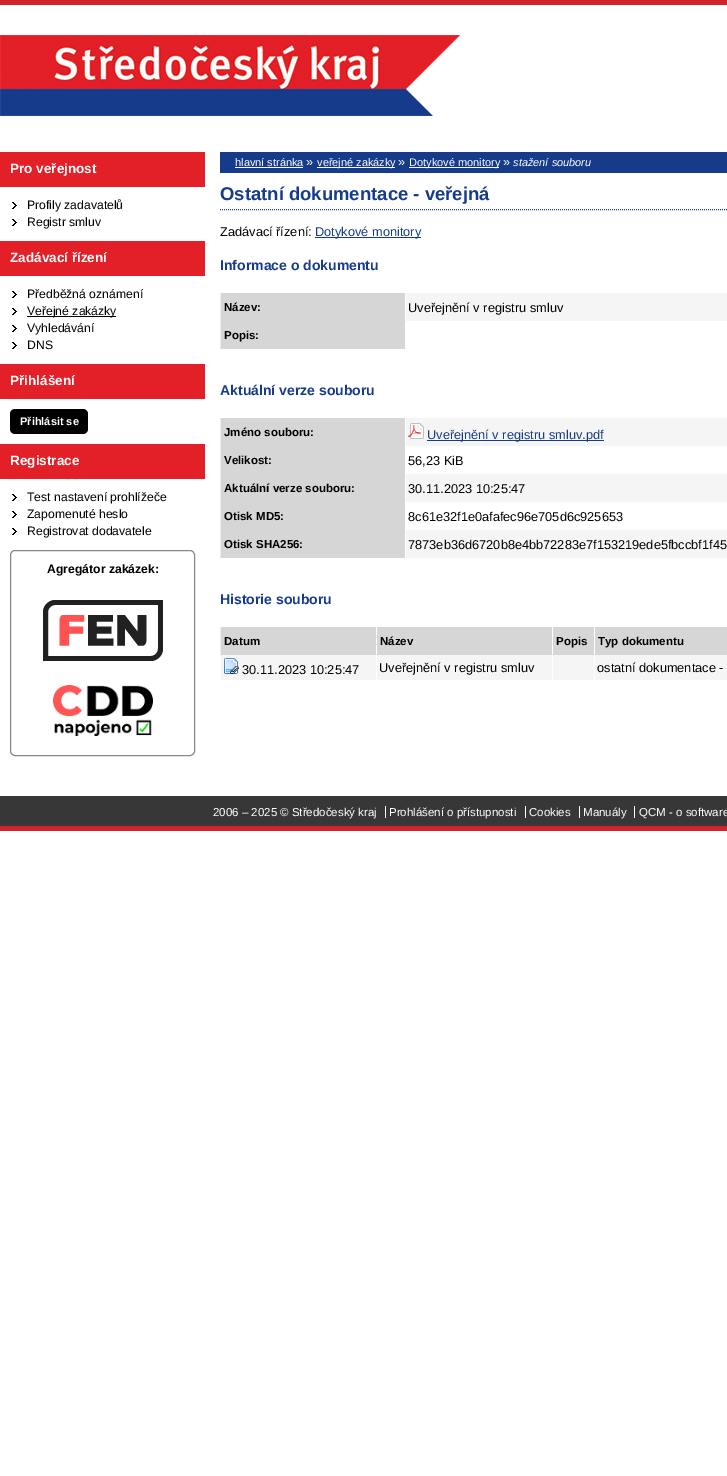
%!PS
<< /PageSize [727 1476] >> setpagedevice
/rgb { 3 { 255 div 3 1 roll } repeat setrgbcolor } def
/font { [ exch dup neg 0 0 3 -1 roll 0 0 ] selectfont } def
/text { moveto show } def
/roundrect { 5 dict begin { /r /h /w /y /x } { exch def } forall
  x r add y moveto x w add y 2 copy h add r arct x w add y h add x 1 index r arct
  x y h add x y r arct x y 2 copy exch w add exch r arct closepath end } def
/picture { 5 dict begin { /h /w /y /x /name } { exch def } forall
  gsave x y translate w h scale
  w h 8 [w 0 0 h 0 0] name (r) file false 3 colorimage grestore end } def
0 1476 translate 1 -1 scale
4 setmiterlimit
255 255 255 rgb
0 0 727 1476 rectfill
210 35 42 rgb
0 0 727 5 rectfill
(img_01.rgb) 0 35 460 81 picture
227 31 39 rgb
0 152 205 35 rectfill
(img_02.rgb) 12 202 5 7 picture
(img_02.rgb) 12 219 5 7 picture
0 241 205 35 rectfill
(img_02.rgb) 12 291 5 7 picture
(img_02.rgb) 12 308 5 7 picture
0 0 0 rgb
27 316 89 1 rectfill
(img_02.rgb) 12 325 5 7 picture
(img_02.rgb) 12 342 5 7 picture
227 31 39 rgb
0 364 205 35 rectfill
0 0 0 rgb
10 409 78 25 5 roundrect fill
227 31 39 rgb
0 444 205 35 rectfill
(img_02.rgb) 12 494 5 7 picture
(img_02.rgb) 12 511 5 7 picture
(img_02.rgb) 12 528 5 7 picture
136 136 136 rgb
10.5 550.5 184 205 4.5 roundrect stroke
(img_03.rgb) 43 600 120 61 picture
(img_04.rgb) 53 685 100 51 picture
21 59 138 rgb
220 152 507 21 rectfill
255 255 255 rgb
235 167 68 1 rectfill
317 167 78 1 rectfill
409 167 90 1 rectfill
21 59 138 rgb
[1 1] 0 setdash
220 209.5 moveto 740 0 rlineto stroke
315 237 106 1 rectfill
245 245 245 rgb
406 293 321 28 rectfill
214 214 214 rgb
221 293 184 56 rectfill
229 239 245 rgb
220 293 1 57 rectfill
245 245 245 rgb
406 418 321 28 rectfill
214 214 214 rgb
221 418 184 140 rectfill
(img_05.rgb) 408 423 16 16 picture
21 59 138 rgb
427 440 177 1 rectfill
245 245 245 rgb
406 474 321 28 rectfill
406 530 321 28 rectfill
229 239 245 rgb
220 418 1 141 rectfill
214 214 214 rgb
221 627 155 28 rectfill
229 239 245 rgb
220 627 1 29 rectfill
214 214 214 rgb
377 627 175 28 rectfill
553 627 41 28 rectfill
595 627 132 28 rectfill
245 245 245 rgb
221 655 506 25 rectfill
255 255 255 rgb
376 655 1 26 rectfill
(img_06.rgb) 224 658 15 16 picture
552 655 1 26 rectfill
594 655 1 26 rectfill
(img_07.rgb) 0 796 727 35 picture
385 806 1 12 rectfill
525 806 1 12 rectfill
579 806 1 12 rectfill
634 806 1 12 rectfill
/LiberationSans-Bold 13.5 font
(Pro veřejnost) 10 173 text
/LiberationSans-Regular 12.2 font
0 0 0 rgb
(Profily zadavatelů) 27 209 text
(Registr smluv) 27 226 text
/LiberationSans-Bold 13.5 font
255 255 255 rgb
(Zadávací řízení) 10 262 text
/LiberationSans-Regular 12.2 font
0 0 0 rgb
(Předběžná oznámení) 27 298 text
(Veřejné zakázky) 27 315 text
(Vyhledávání) 27 332 text
(DNS) 27 349 text
/LiberationSans-Bold 13.5 font
255 255 255 rgb
(Přihlášení) 10 385 text
/LiberationSans-Bold 11 font
(Přihlásit se) 20 425 text
/LiberationSans-Bold 13.5 font
(Registrace) 10 465 text
/LiberationSans-Regular 12.2 font
0 0 0 rgb
(Test nastavení prohlížeče) 27 501 text
(Zapomenuté heslo) 27 518 text
(Registrovat dodavatele) 27 535 text
/LiberationSans-Bold 12.2 font
(Agregátor zakázek:) 47 573 text
/LiberationSans-Regular 11 font
255 255 255 rgb
(hlavní stránka) 235 166 text
/LiberationSans-Regular 12.8 font
(») 306 166 text
/LiberationSans-Regular 11 font
(veřejné zakázky) 317 166 text
/LiberationSans-Regular 12.8 font
(») 398 166 text
/LiberationSans-Regular 11 font
(Dotykové monitory) 409 166 text
/LiberationSans-Regular 12.8 font
(») 503 166 text
/LiberationSans-Italic 11 font
(stažení souboru) 513 166 text
/LiberationSans-Bold 18.5 font
21 59 138 rgb
(Ostatní dokumentace - veřejná) 220 200 text
/LiberationSans-Regular 12.8 font
0 0 0 rgb
(Zadávací řízení:) 220 236 text
21 59 138 rgb
(Dotykové monitory) 315 236 text
/LiberationSans-Bold 14 font
(Informace o dokumentu) 220 270 text
/LiberationSans-Bold 11.5 font
0 0 0 rgb
(Název:) 224 311 text
/LiberationSans-Regular 12.8 font
(Uveřejnění v registru smluv) 408 312 text
/LiberationSans-Bold 11.5 font
(Popis:) 224 339 text
/LiberationSans-Bold 14 font
21 59 138 rgb
(Aktuální verze souboru) 220 395 text
/LiberationSans-Bold 11.5 font
0 0 0 rgb
(Jméno souboru:) 224 436 text
/LiberationSans-Regular 12.8 font
21 59 138 rgb
(Uveřejnění v registru smluv.pdf) 427 439 text
/LiberationSans-Bold 11.5 font
0 0 0 rgb
(Velikost:) 224 464 text
/LiberationSans-Regular 12.8 font
(56,23 KiB) 408 465 text
/LiberationSans-Bold 11.5 font
(Aktuální verze souboru:) 224 492 text
/LiberationSans-Regular 12.8 font
(30.11.2023 10:25:47) 408 493 text
/LiberationSans-Bold 11.5 font
(Otisk MD5:) 224 520 text
/LiberationSans-Regular 12.8 font
(8c61e32f1e0afafec96e705d6c925653) 408 521 text
/LiberationSans-Bold 11.5 font
(Otisk SHA256:) 224 548 text
/LiberationSans-Regular 12.8 font
(7873eb36d6720b8e4bb72283e7f153219ede5fbccbf1f45) 408 549 text
/LiberationSans-Bold 14 font
21 59 138 rgb
(Historie souboru) 220 604 text
/LiberationSans-Bold 11.5 font
0 0 0 rgb
(Datum) 224 645 text
(Název) 380 645 text
(Popis) 556 645 text
(Typ dokumentu) 598 645 text
/LiberationSans-Regular 12.8 font
(30.11.2023 10:25:47) 242 674 text
(Uveřejnění v registru smluv) 379 672 text
(ostatní dokumentace -) 597 672 text
/LiberationSans-Regular 11.5 font
255 255 255 rgb
(2006 – 2025 © Středočeský kraj) 213 816 text
(Prohlášení o přístupnosti) 389 816 text
(Cookies) 529 816 text
(Manuály) 583 816 text
(QCM - o software) 639 816 text
showpage
